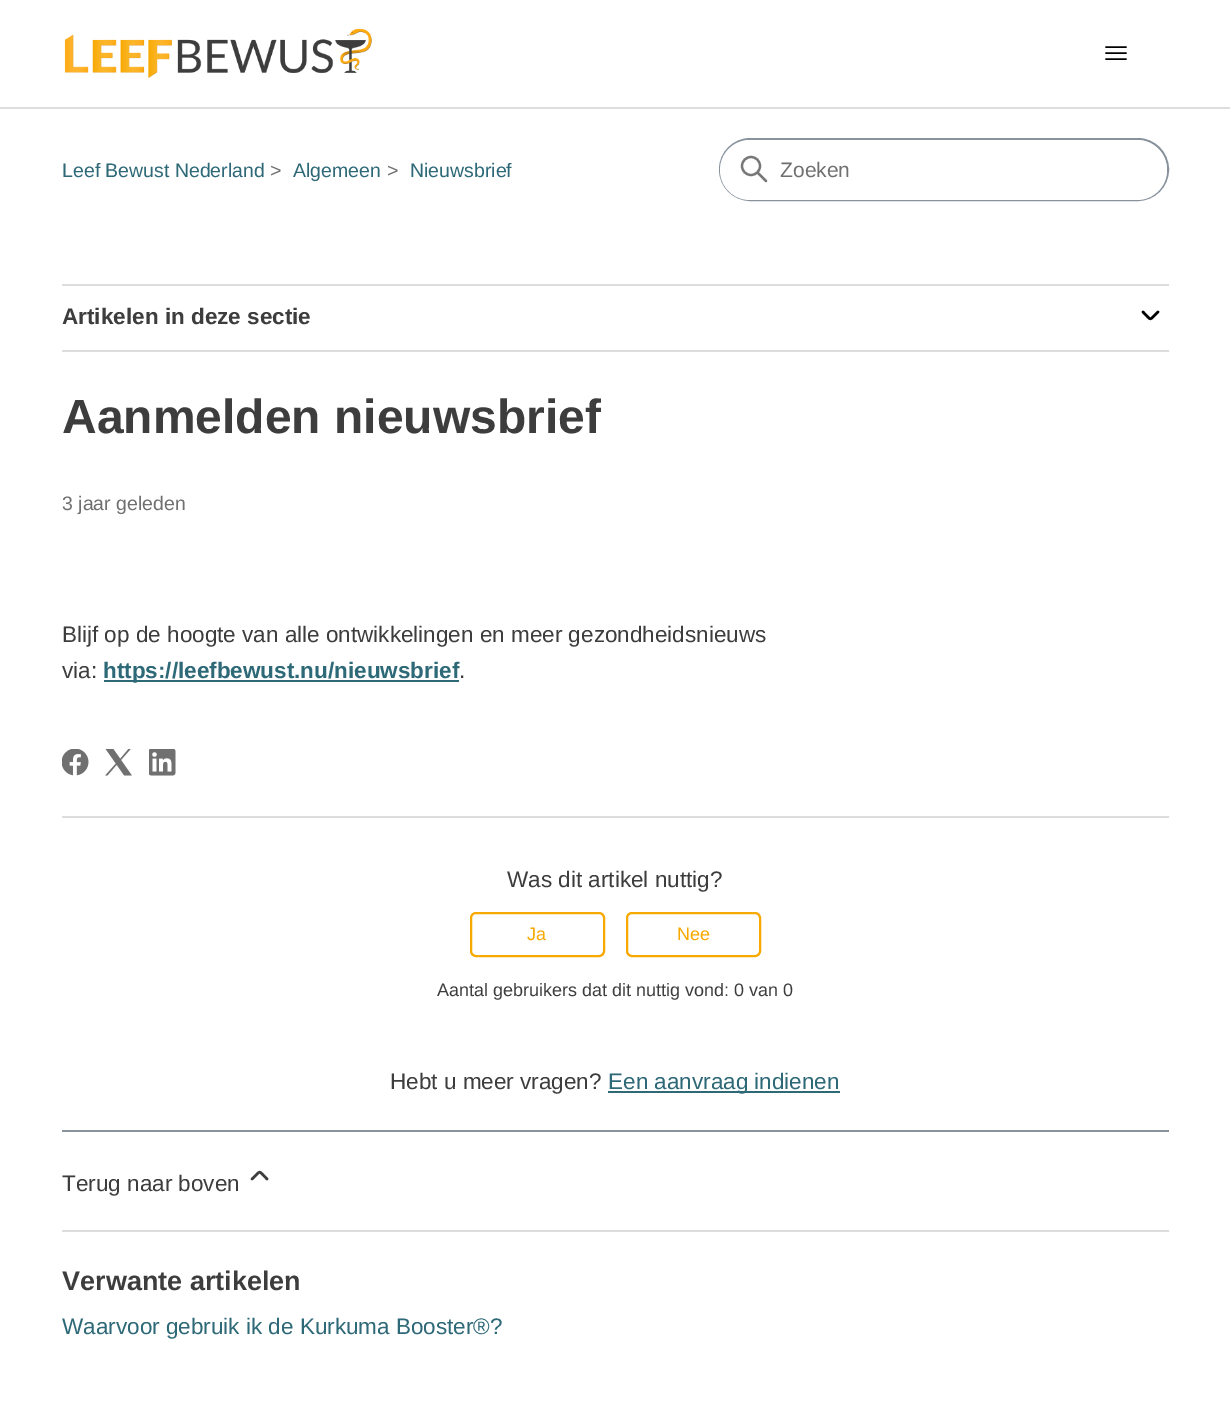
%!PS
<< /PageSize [1230 1419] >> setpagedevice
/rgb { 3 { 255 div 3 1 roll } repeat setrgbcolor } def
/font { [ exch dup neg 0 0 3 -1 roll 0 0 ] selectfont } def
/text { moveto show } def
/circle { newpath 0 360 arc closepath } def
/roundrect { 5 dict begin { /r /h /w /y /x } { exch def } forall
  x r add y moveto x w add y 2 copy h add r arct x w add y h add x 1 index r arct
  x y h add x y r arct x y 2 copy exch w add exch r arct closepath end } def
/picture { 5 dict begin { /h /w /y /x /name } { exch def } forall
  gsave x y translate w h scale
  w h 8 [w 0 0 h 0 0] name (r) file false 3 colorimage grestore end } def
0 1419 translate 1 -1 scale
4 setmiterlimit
255 255 255 rgb
0 0 1230 1419 rectfill
(img_01.rgb) 64 28 308 50 picture
0 0 0 rgb
1.5 setlinewidth
1 setlinecap
1106 47 moveto 20 0 rlineto 1106 53 moveto 20 0 rlineto 1106 59 moveto 20 0 rlineto stroke
221 221 221 rgb
0 107 1230 2 rectfill
135 146 157 rgb
2 setlinewidth
0 setlinecap
720 139 448 61 30.5 roundrect stroke
255 255 255 rgb
720 140 447 60 30 roundrect fill
119 119 119 rgb
2.2 setlinewidth
751 166 9 circle stroke
1 setlinecap
766 181 moveto -8 -8 rlineto stroke
221 221 221 rgb
62 284 1107 2 rectfill
62 350 1107 2 rectfill
0 0 0 rgb
2.5 setlinewidth
1143 312 moveto 9 9 5.5 9 15 0 rcurveto stroke
46 105 120 rgb
104 680 355 2 rectfill
(img_02.rgb) 62 749 27 27 picture
(img_03.rgb) 105 749 27 27 picture
(img_04.rgb) 149 749 27 27 picture
221 221 221 rgb
62 816 1107 2 rectfill
248 169 0 rgb
2 setlinewidth
0 setlinecap
471 913 133 43 5 roundrect stroke
627 913 133 43 5 roundrect stroke
46 105 120 rgb
608 1091 232 2 rectfill
135 146 157 rgb
62 1130 1107 2 rectfill
61 61 61 rgb
2.5 setlinewidth
1 setlinecap
267 1179 moveto -9 -9 -5.5 -9 -15 0 rcurveto stroke
221 221 221 rgb
62 1230 1107 2 rectfill
/LiberationSans-Regular 19.5 font
46 105 120 rgb
(Leef Bewust Nederland) 62 177 text
112 112 112 rgb
(>) 270 177 text
46 105 120 rgb
(Algemeen) 293 177 text
112 112 112 rgb
(>) 387 177 text
46 105 120 rgb
(Nieuwsbrief) 410 177 text
/LiberationSans-Regular 21 font
112 112 112 rgb
(Zoeken) 780 177 text
/LiberationSans-Bold 22.5 font
61 61 61 rgb
(Artikelen in deze sectie) 62 324 text
/LiberationSans-Bold 48 font
(Aanmelden nieuwsbrief) 62 433 text
/LiberationSans-Regular 19.5 font
112 112 112 rgb
(3 jaar geleden) 62 510 text
/LiberationSans-Regular 22.5 font
61 61 61 rgb
(Blijf op de hoogte van alle ontwikkelingen en meer gezondheidsnieuws) 62 642 text
(via:) 62 678 text
/LiberationSans-Bold 22.5 font
46 105 120 rgb
(https://leefbewust.nu/nieuwsbrief) 103 678 text
/LiberationSans-Regular 22.5 font
61 61 61 rgb
(.) 459 678 text
(Was dit artikel nuttig?) 507 887 text
/LiberationSans-Regular 18 font
248 169 0 rgb
(Ja) 527 940 text
(Nee) 677 940 text
61 61 61 rgb
(Aantal gebruikers dat dit nuttig vond: 0 van 0) 437 996 text
/LiberationSans-Regular 22.5 font
(Hebt u meer vragen?) 390 1089 text
46 105 120 rgb
(Een aanvraag indienen) 608 1089 text
61 61 61 rgb
(Terug naar boven) 62 1191 text
/LiberationSans-Bold 27 font
(Verwante artikelen) 62 1290 text
/LiberationSans-Regular 22.5 font
46 105 120 rgb
(Waarvoor gebruik ik de Kurkuma Booster®?) 62 1334 text
showpage
